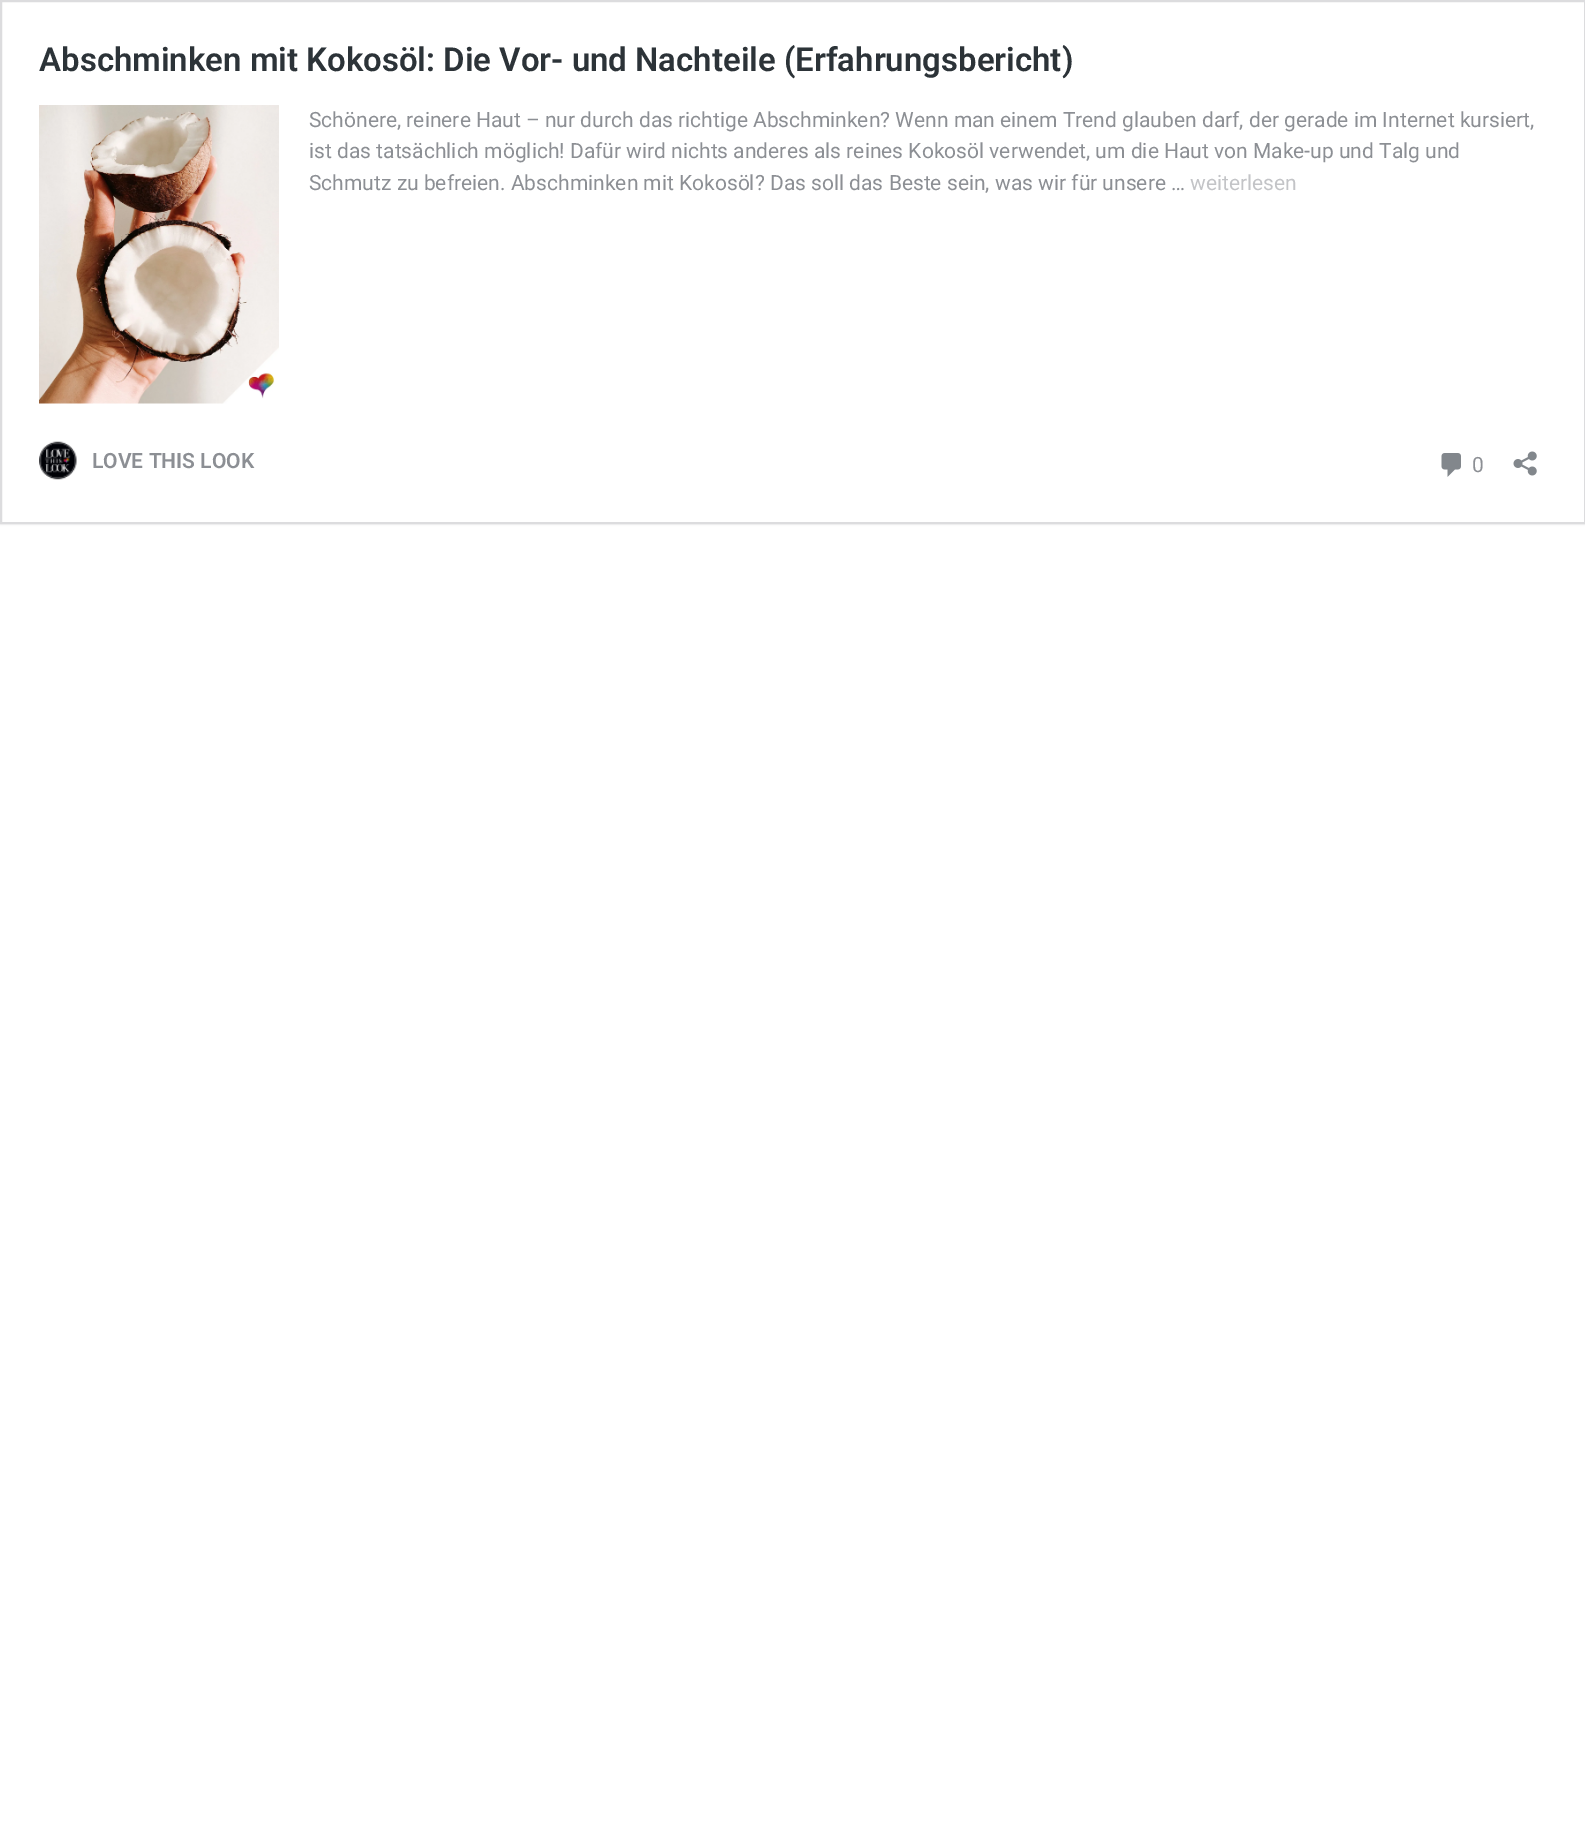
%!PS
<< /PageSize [1585 1844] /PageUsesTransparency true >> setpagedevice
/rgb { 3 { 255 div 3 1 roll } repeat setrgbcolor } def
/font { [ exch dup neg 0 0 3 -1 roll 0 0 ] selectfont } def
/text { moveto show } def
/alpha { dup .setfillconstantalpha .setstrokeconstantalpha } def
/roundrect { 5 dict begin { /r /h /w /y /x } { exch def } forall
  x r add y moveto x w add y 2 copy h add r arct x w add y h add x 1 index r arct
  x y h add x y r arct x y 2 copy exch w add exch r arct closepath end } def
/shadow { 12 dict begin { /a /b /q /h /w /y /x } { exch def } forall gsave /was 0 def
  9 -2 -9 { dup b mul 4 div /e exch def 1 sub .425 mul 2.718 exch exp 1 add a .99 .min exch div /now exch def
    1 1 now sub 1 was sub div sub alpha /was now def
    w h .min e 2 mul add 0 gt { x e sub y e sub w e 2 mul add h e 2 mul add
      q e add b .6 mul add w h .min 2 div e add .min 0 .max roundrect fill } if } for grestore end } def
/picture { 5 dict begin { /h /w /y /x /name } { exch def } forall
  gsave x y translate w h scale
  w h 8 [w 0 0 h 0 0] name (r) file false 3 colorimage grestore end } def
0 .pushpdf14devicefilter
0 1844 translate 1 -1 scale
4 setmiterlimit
255 255 255 rgb
0 0 1585 1844 rectfill
0 0 0 rgb
0 2 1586 523 0 1 0.05 shadow
255 255 255 rgb
1 1 moveto 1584 0 rlineto 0 522 rlineto -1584 0 rlineto closepath gsave fill grestore
220 220 222 rgb
2 setlinewidth
stroke
(img_01.rgb) 39 105 240 299 picture
(img_02.rgb) 39 441 38 39 picture
(img_03.rgb) 1441 453 20 24 picture
(img_04.rgb) 1513 451 24 25 picture
/Roboto-SemiBold 33 font
44 51 56 rgb
(Abschminken mit Kokosöl: Die Vor- und Nachteile \(Erfahrungsbericht\)) 39 71 text
/Roboto-Regular 21 font
140 143 148 rgb
(Schönere, reinere Haut – nur durch das richtige Abschminken? Wenn man einem Trend glauben darf, der gerade im Internet kursiert,) 309 127 text
(ist das tatsächlich möglich! Dafür wird nichts anderes als reines Kokosöl verwendet, um die Haut von Make-up und Talg und) 309 158 text
(Schmutz zu befreien. Abschminken mit Kokosöl? Das soll das Beste sein, was wir für unsere …) 309 190 text
195 196 199 rgb
(weiterlesen) 1190 190 text
/Roboto-SemiBold 21 font
140 143 148 rgb
(LOVE THIS LOOK) 92 468 text
/Roboto-Regular 21 font
(0) 1472 472 text
.poppdf14devicefilter showpage
